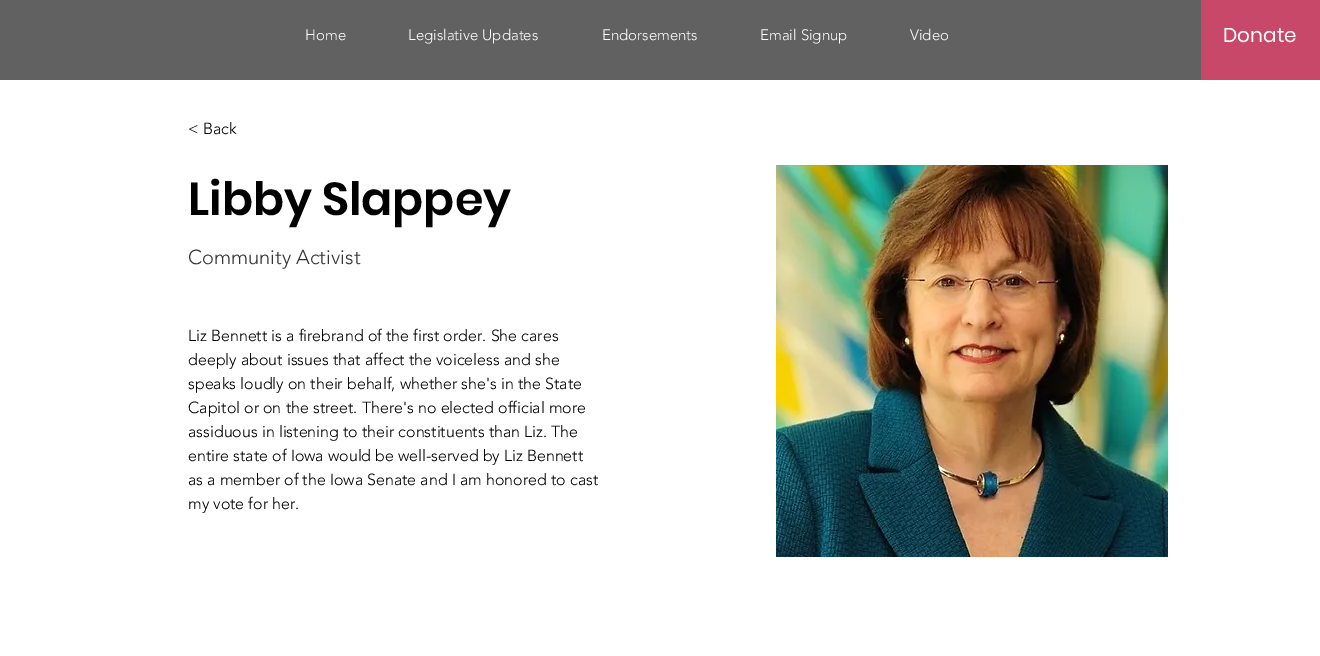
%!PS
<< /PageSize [1320 656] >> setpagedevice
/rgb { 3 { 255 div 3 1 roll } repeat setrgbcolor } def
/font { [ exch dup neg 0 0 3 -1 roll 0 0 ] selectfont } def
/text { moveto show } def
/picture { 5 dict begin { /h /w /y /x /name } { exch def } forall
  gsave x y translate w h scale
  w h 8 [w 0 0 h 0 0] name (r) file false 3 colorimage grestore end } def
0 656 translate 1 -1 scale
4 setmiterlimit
255 255 255 rgb
0 0 1320 656 rectfill
97 97 97 rgb
0 0 1201 80 rectfill
200 72 105 rgb
1201 0 119 80 rectfill
(img_01.rgb) 776 165 392 392 picture
/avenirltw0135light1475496-Light 15 font
255 255 255 rgb
(Home) 305 40 text
(Legislative Updates) 408 40 text
(Endorsements) 602 40 text
(Email Signup) 760 40 text
(Video) 910 40 text
/Poppins-Regular 20 font
(Donate) 1223 42 text
/avenirltw0135light1475496-Light 16 font
0 0 0 rgb
(< Back) 188 134 text
/Poppins-SemiBold 46 font
(Libby Slappey) 188 215 text
/avenirltw0135light1475496-Light 20 font
51 51 51 rgb
(Community Activist) 188 264 text
/avenirltw0135light1475496-Light 16 font
0 0 0 rgb
(Liz Bennett is a firebrand of the first order. She cares) 188 341 text
(deeply about issues that affect the voiceless and she) 188 365 text
(speaks loudly on their behalf, whether she's in the State) 188 389 text
(Capitol or on the street. There's no elected official more) 188 413 text
(assiduous in listening to their constituents than Liz. The) 188 437 text
(entire state of Iowa would be well-served by Liz Bennett) 188 461 text
(as a member of the Iowa Senate and I am honored to cast) 188 485 text
(my vote for her.) 188 509 text
showpage
